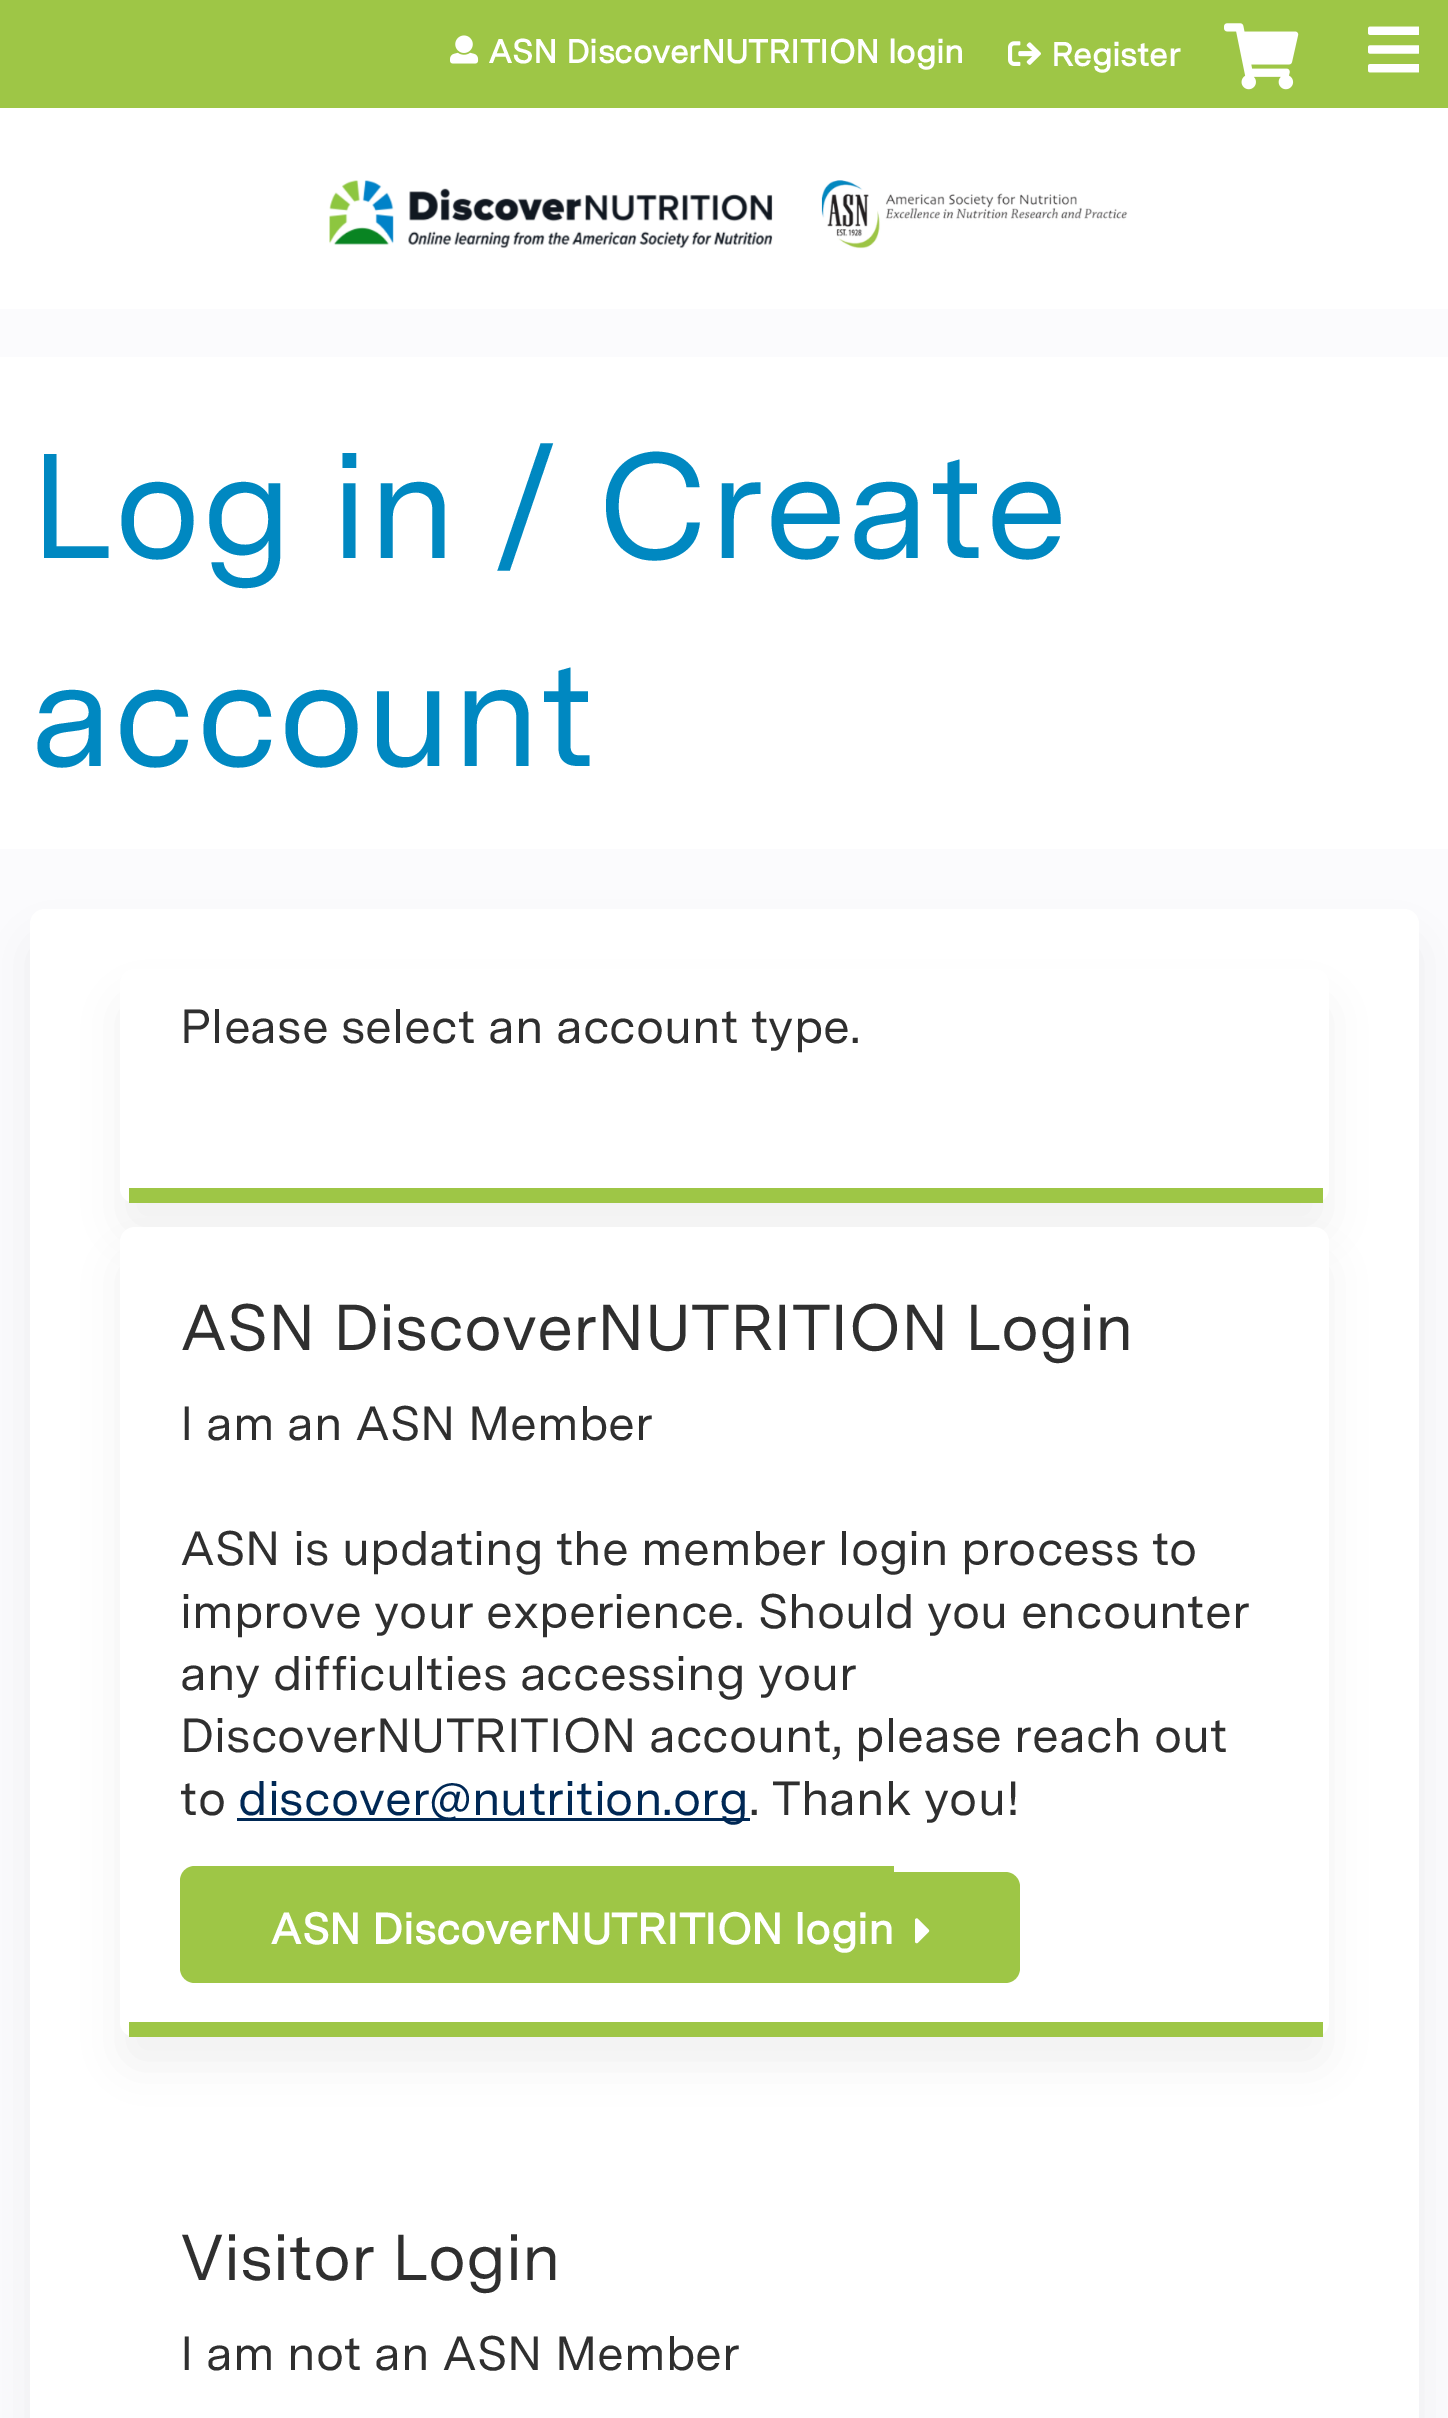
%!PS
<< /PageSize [1448 2418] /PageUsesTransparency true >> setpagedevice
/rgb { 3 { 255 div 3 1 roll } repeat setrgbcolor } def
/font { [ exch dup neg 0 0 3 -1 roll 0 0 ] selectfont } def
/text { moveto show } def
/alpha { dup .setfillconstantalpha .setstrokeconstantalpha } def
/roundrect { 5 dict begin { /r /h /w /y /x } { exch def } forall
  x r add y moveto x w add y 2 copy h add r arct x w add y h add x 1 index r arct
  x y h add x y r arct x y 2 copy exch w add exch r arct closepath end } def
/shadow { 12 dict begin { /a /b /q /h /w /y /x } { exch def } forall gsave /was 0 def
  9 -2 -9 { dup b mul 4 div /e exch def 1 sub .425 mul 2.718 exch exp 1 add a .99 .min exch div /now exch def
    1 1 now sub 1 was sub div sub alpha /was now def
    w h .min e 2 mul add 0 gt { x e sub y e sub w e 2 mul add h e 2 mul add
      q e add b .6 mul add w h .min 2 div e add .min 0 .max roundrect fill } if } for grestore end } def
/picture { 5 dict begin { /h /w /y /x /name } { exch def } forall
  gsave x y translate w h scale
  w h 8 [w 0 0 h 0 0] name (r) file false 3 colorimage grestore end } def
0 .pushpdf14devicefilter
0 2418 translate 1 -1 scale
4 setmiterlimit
251 251 253 rgb
0 0 1448 2418 rectfill
255 255 255 rgb
0 108 1448 201 rectfill
158 198 70 rgb
0 0 1448 108 rectfill
(img_01.rgb) 450 35 29 29 picture
(img_02.rgb) 1008 41 33 25 picture
(img_03.rgb) 1224 23 75 67 picture
(img_04.rgb) 1368 26 51 47 picture
(img_05.rgb) 329 180 799 69 picture
255 255 255 rgb
0 357 1448 492 rectfill
0 0 0 rgb
30 939 1389 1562 15 22.5 0.05 shadow
255 255 255 rgb
30 909 1389 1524 15 roundrect fill
0 0 0 rgb
120 999 1209 234 15 22.5 0.05 shadow
255 255 255 rgb
120 969 1209 234 15 roundrect fill
158 198 70 rgb
129 1188 1194 15 rectfill
0 0 0 rgb
120 1257 1209 810 15 22.5 0.05 shadow
255 255 255 rgb
120 1227 1209 810 15 roundrect fill
158 198 70 rgb
129 2022 1194 15 rectfill
0 40 85 rgb
237 1818 513 3 rectfill
158 198 70 rgb
195 1866 moveto 699 0 rlineto 0 117 rlineto -699 0 rlineto -8.5 0 -15 -6.5 -15 -15 rcurveto 0 -87 rlineto 0 -8.5 6.5 -15 15 -15 rcurveto closepath fill
894 1872 moveto 111 0 rlineto 8.5 0 15 6.5 15 15 rcurveto 0 81 rlineto 0 8.5 -6.5 15 -15 15 rcurveto -111 0 rlineto closepath fill
(img_06.rgb) 915 1918 15 26 picture
/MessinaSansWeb-Bold 33 font
255 255 255 rgb
(ASN DiscoverNUTRITION login) 488 63 text
(Register) 1051 66 text
/MessinaSansWeb-Regular 148.75 font
0 136 193 rgb
(Log in / Create) 30 558 text
(account) 30 766 text
/MessinaSansWeb-Regular 48 font
47 47 47 rgb
(Please select an account type.) 180 1043 text
/MessinaSansWeb-Regular 64.75 font
(ASN DiscoverNUTRITION Login) 180 1350 text
/MessinaSansWeb-Regular 48 font
(I am an ASN Member) 180 1440 text
(ASN is updating the member login process to) 180 1565 text
(improve your experience. Should you encounter) 180 1628 text
(any difficulties accessing your) 180 1690 text
(DiscoverNUTRITION account, please reach out) 180 1752 text
(to) 180 1815 text
0 40 85 rgb
(discover@nutrition.org) 238 1815 text
47 47 47 rgb
(. Thank you!) 749 1815 text
/MessinaSansWeb-Bold 43.25 font
255 255 255 rgb
(ASN DiscoverNUTRITION login) 270 1944 text
/MessinaSansWeb-Regular 64.75 font
47 47 47 rgb
(Visitor Login) 180 2280 text
/MessinaSansWeb-Regular 48 font
(I am not an ASN Member) 180 2370 text
.poppdf14devicefilter showpage
